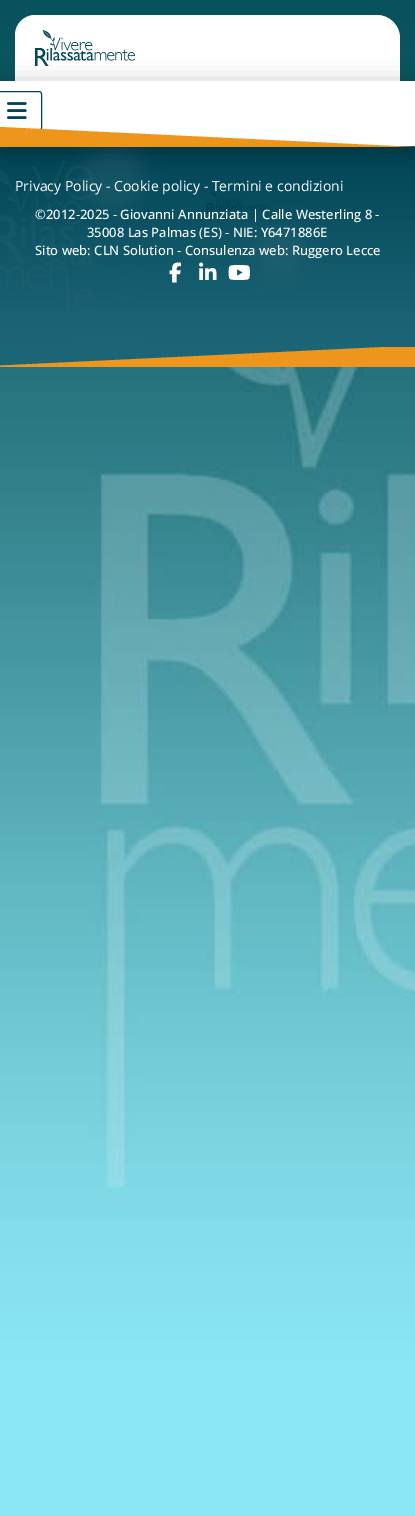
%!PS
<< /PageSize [415 1516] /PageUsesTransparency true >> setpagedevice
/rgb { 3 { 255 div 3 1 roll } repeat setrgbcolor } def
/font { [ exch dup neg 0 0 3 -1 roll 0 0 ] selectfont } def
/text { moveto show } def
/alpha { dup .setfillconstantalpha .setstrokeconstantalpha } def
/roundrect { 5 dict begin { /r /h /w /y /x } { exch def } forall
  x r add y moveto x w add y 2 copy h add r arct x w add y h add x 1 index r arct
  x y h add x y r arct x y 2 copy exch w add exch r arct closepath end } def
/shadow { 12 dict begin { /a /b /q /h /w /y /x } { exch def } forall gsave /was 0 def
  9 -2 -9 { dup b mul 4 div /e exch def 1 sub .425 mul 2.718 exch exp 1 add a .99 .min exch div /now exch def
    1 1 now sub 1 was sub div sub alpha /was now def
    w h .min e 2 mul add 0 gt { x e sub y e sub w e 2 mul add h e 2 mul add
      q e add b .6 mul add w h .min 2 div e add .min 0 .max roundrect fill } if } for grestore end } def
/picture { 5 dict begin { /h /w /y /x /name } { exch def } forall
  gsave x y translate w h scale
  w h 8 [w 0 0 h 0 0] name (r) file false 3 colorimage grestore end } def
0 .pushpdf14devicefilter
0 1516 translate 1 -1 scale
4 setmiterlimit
255 255 255 rgb
0 0 415 1516 rectfill
(img_01.rgb) 0 0 415 1516 picture
35 15 moveto 342 0 rlineto 12.5 0 23 10.5 23 23 rcurveto 0 43 rlineto -385 0 rlineto 0 -46 rlineto 0 -11 9 -20 20 -20 rcurveto closepath fill
(img_02.rgb) 35 30 100 36 picture
(img_04.rgb) 0 146 415 220 picture
0 0 0 rgb
0 86 415 65 0 12.5 0.3 shadow
255 255 255 rgb
0 81 415 65 rectfill
0 68 87 rgb
-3.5 91.5 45 39 2.5 roundrect stroke
(img_03.rgb) 7 102 20 17 picture
238 149 27 rgb
0 127 moveto 0 20 rlineto 415 0 rlineto closepath fill
(img_05.rgb) 169 262 12 21 picture
(img_06.rgb) 199 262 18 18 picture
(img_07.rgb) 228 265 22 15 picture
415 347 moveto 0 20 rlineto -415 0 rlineto closepath fill
gsave
0 347 415 20 rectclip
2.9 setlinewidth
415 347 moveto 0 20 rlineto -415 0 rlineto closepath stroke
grestore
/OpenSans-Regular 14 font
255 255 255 rgb
(Privacy Policy - Cookie policy - Termini e condizioni) 15 191 text
/OpenSans-Medium 13 font
(©2012-2025 - Giovanni Annunziata | Calle Westerling 8 -) 35 219 text
(35008 Las Palmas \(ES\) - NIE: Y6471886E) 87 237 text
(Sito web: CLN Solution - Consulenza web: Ruggero Lecce) 35 255 text
.poppdf14devicefilter showpage
